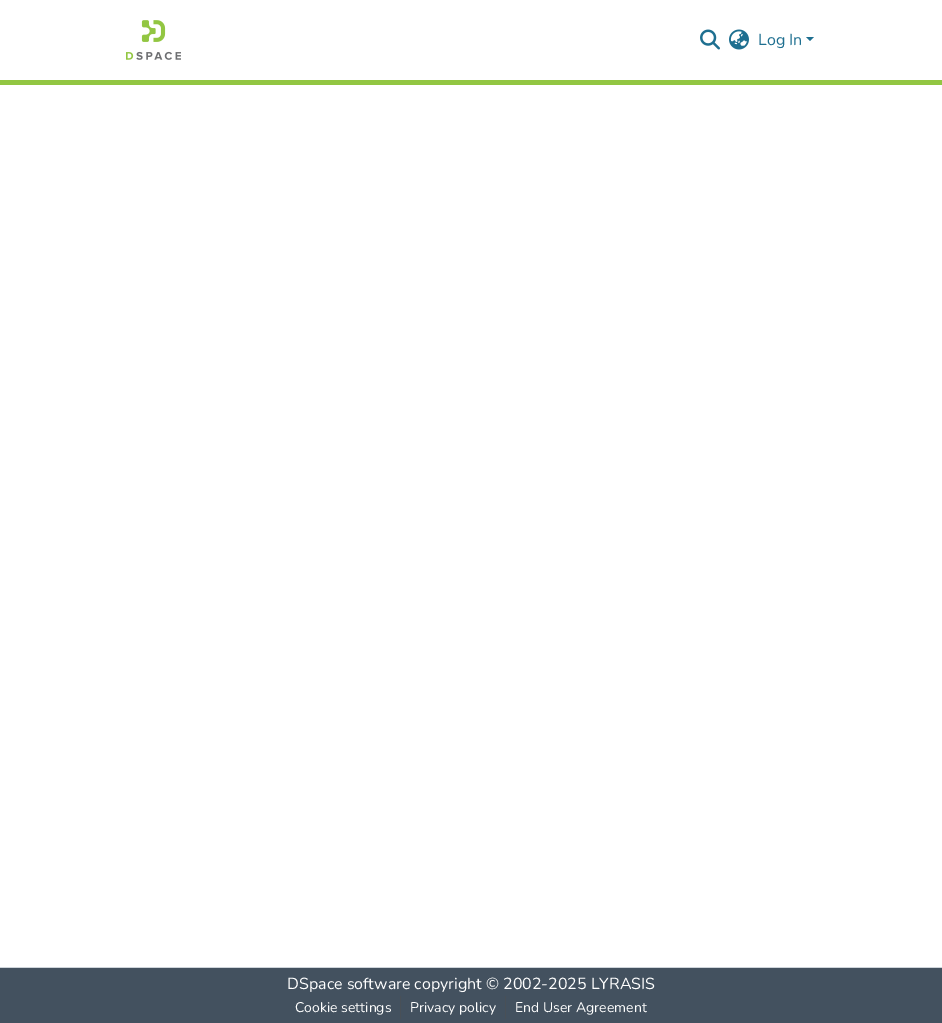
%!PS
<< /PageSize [942 1023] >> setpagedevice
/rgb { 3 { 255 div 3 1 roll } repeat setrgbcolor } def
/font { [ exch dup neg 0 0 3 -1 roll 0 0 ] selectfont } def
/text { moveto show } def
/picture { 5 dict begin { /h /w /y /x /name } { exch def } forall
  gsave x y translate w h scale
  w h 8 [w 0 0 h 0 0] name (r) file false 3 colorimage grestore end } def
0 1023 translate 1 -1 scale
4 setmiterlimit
255 255 255 rgb
0 0 942 1023 rectfill
146 198 66 rgb
0 80 942 5 rectfill
(img_01.rgb) 126 20 55 40 picture
(img_02.rgb) 700 29 20 21 picture
(img_03.rgb) 729 29 20 21 picture
30 111 144 rgb
806 37 moveto 8 0 rlineto -4 4 rlineto closepath fill
67 81 95 rgb
0 968 942 55 rectfill
206 212 218 rgb
0 967 942 1 rectfill
73 80 87 rgb
400 996 1 23 rectfill
505 996 1 23 rectfill
/Nunito-Regular 16 font
30 111 144 rgb
(Log In) 758 45 text
255 255 255 rgb
(DSpace software copyright © 2002-2025 LYRASIS) 287 989 text
/Nunito-Regular 14 font
(Cookie settings) 295 1012 text
(Privacy policy) 410 1012 text
(End User Agreement) 515 1012 text
showpage
